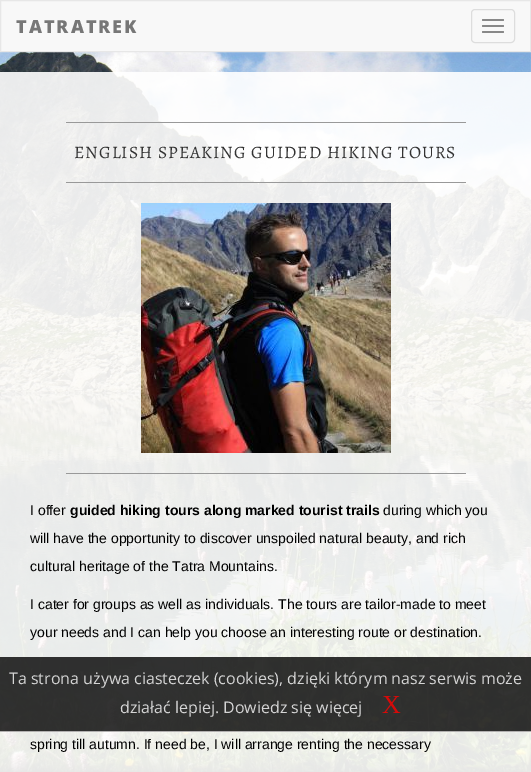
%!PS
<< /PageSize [531 772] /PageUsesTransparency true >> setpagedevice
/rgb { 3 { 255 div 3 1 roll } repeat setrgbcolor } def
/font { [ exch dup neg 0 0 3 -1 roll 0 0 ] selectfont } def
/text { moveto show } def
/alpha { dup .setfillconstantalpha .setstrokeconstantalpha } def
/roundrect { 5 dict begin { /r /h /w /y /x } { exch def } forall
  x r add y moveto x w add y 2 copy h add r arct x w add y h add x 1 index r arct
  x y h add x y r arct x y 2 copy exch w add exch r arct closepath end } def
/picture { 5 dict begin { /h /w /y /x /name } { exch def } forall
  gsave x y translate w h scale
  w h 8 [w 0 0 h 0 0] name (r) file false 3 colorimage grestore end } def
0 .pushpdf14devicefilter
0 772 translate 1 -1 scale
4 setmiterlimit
255 255 255 rgb
0 0 531 772 rectfill
(img_01.rgb) 0 52 531 720 picture
248 248 248 rgb
0.5 0.5 moveto 530 0 rlineto 0 51 rlineto -530 0 rlineto closepath gsave fill grestore
231 231 231 rgb
stroke
221 221 221 rgb
471.5 9.5 43 33 3.5 roundrect stroke
136 136 136 rgb
482 19 22 2 1 roundrect fill
482 25 22 2 1 roundrect fill
482 31 22 2 1 roundrect fill
153 153 153 rgb
66 122 400 1 rectfill
66 182 400 1 rectfill
(img_02.rgb) 141 203 250 250 picture
66 473 400 1 rectfill
0.8 alpha
0 0 0 rgb
0 657 531 75 rectfill
211 208 208 rgb
0 731 531 1 rectfill
/OpenSans-ExtraBold 18 font
1 alpha
119 119 119 rgb
16 33 moveto 2 0 (TATRATREK) ashow
/Alegreya-Regular 17.5 font
51 51 51 rgb
74 158 moveto 1 0 (ENGLISH SPEAKING GUIDED HIKING TOURS) ashow
/LiberationSans-Regular 14 font
0 0 0 rgb
(I offer) 30 515 text
/LiberationSans-Bold 14 font
(guided hiking tours along marked tourist trails) 70 515 text
/LiberationSans-Regular 14 font
(during which you) 383 515 text
(will have the opportunity to discover unspoiled natural beauty, and rich) 30 543 text
(cultural heritage of the Tatra Mountains.) 30 571 text
(I cater for groups as well as individuals. The tours are tailor-made to meet) 30 609 text
(your needs and I can help you choose an interesting route or destination.) 30 637 text
(spring till autumn. If need be, I will arrange renting the necessary) 30 749 text
/OpenSans-Regular 16 font
213 213 213 rgb
(Ta strona używa ciasteczek \(cookies\), dzięki którym nasz serwis może) 9 684 text
(działać lepiej. Dowiedz się więcej) 120 713 text
/LiberationSerif-Regular 26 font
214 10 9 rgb
(X) 382 713 text
.poppdf14devicefilter showpage
